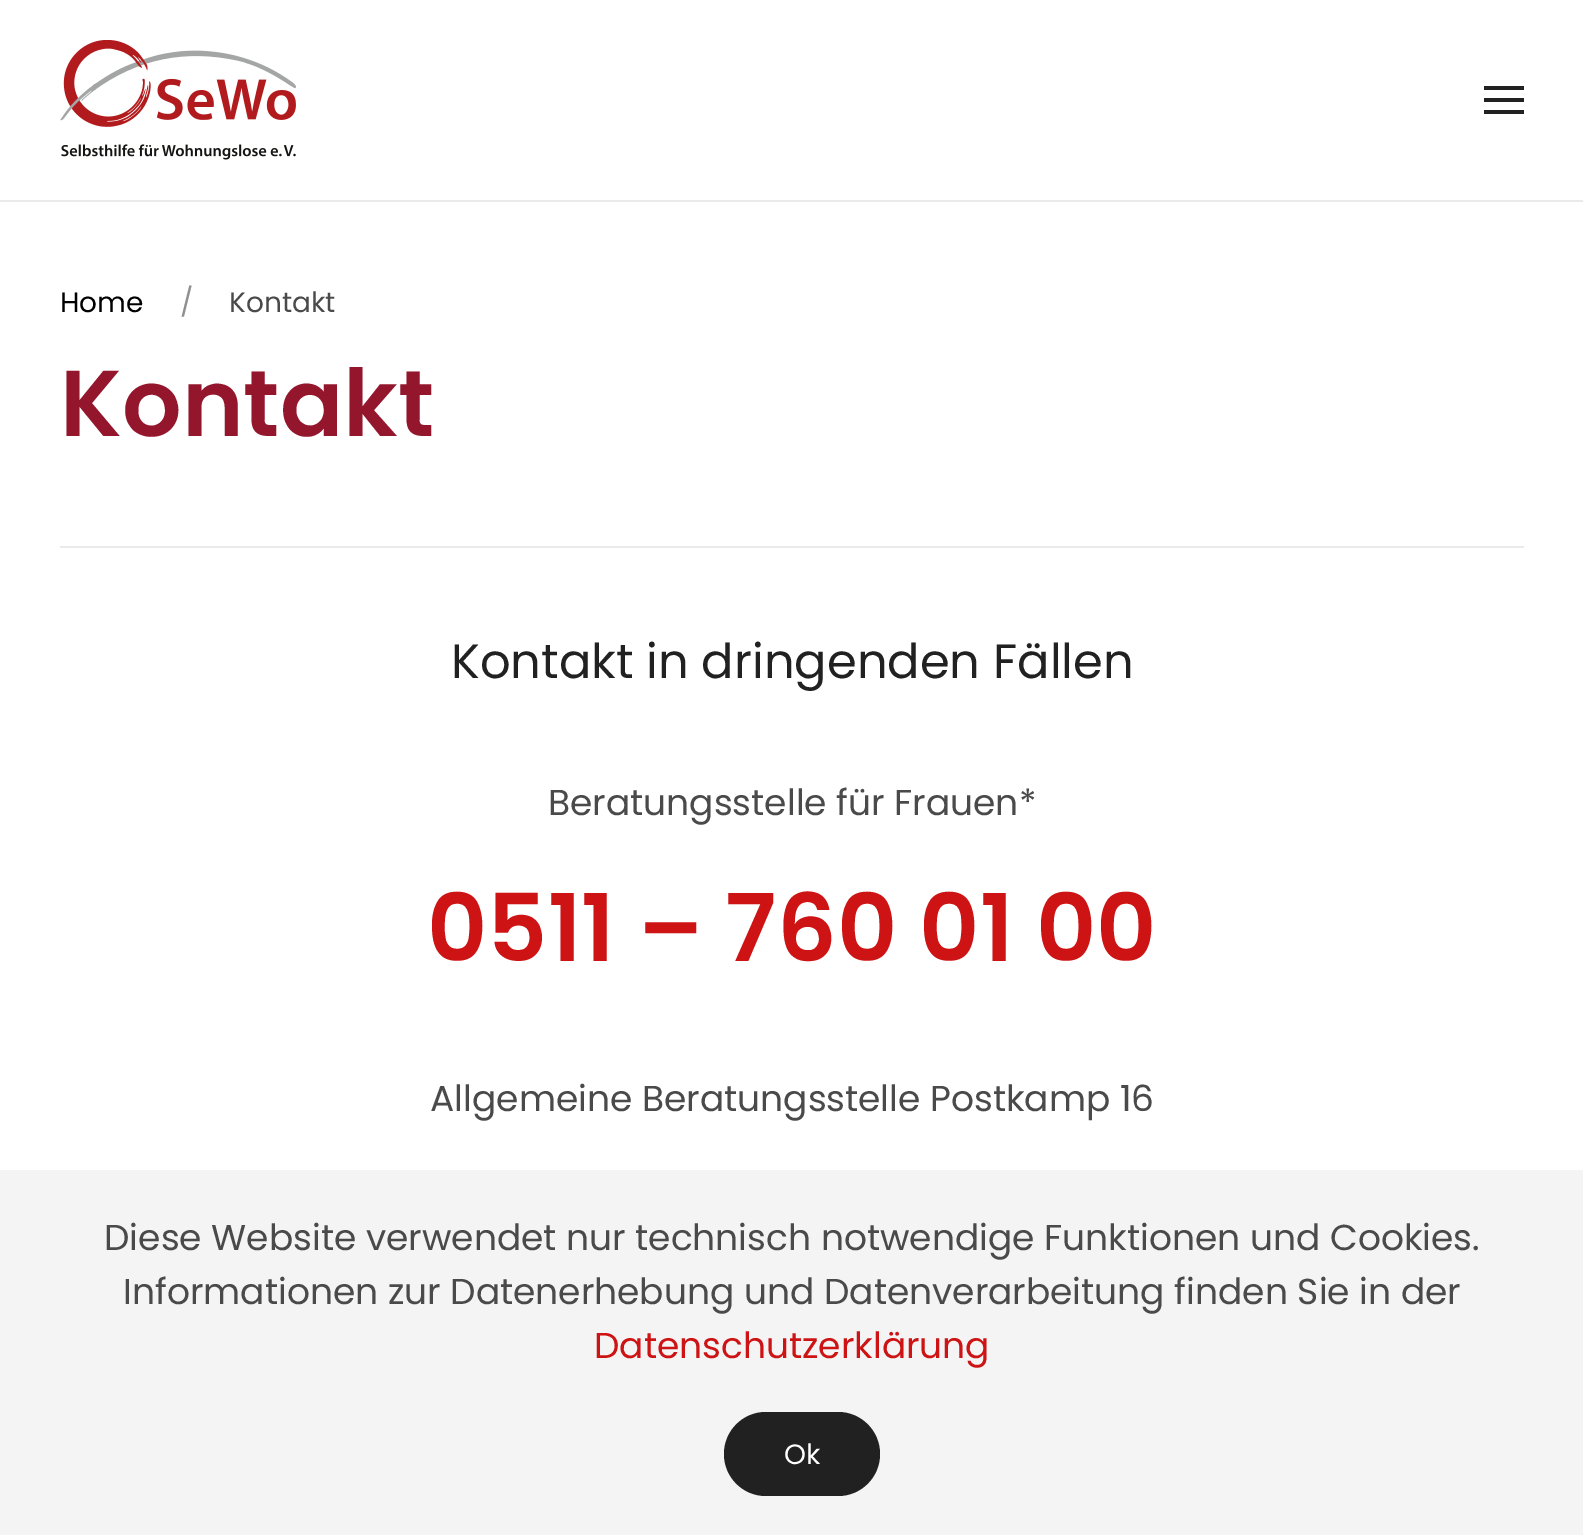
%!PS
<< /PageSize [1583 1535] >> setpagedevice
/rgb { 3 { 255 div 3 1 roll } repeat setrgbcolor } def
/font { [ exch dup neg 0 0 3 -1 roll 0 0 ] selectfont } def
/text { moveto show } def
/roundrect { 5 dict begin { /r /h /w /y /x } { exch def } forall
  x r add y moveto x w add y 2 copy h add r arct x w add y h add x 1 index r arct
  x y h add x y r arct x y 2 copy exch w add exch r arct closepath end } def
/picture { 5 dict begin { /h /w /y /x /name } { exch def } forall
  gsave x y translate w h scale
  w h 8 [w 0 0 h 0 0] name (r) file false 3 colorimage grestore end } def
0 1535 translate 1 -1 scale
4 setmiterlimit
255 255 255 rgb
0 0 1583 1535 rectfill
234 234 234 rgb
0 200 1583 2 rectfill
(img_01.rgb) 60 40 236 120 picture
33 33 33 rgb
1484 86 40 4 rectfill
1484 98 40 4 rectfill
1484 110 40 4 rectfill
234 234 234 rgb
60 546 1464 2 rectfill
244 244 244 rgb
0 1170 1583 365 rectfill
33 33 33 rgb
724 1412 156 84 42 roundrect fill
/Poppins-Regular 28 font
0 0 0 rgb
(Home) 60 312 text
144 144 144 rgb
(/) 180 312 text
74 74 74 rgb
(Kontakt) 229 312 text
/Poppins-SemiBold 93.5 font
147 22 44 rgb
(Kontakt) 60 436 text
/Poppins-Regular 48 font
33 33 33 rgb
(Kontakt in dringenden Fällen) 451 678 text
/Poppins-Regular 36 font
74 74 74 rgb
(Beratungsstelle für Frauen*) 548 815 text
/Poppins-SemiBold 93.5 font
205 19 20 rgb
(0511 – 760 01 00) 427 961 text
/Poppins-Regular 36 font
74 74 74 rgb
(Allgemeine Beratungsstelle Postkamp 16) 430 1111 text
(Diese Website verwendet nur technisch notwendige Funktionen und Cookies.) 104 1250 text
(Informationen zur Datenerhebung und Datenverarbeitung finden Sie in der) 123 1304 text
205 19 20 rgb
(Datenschutzerklärung) 594 1358 text
/Poppins-Regular 28 font
255 255 255 rgb
(Ok) 784 1464 text
showpage
